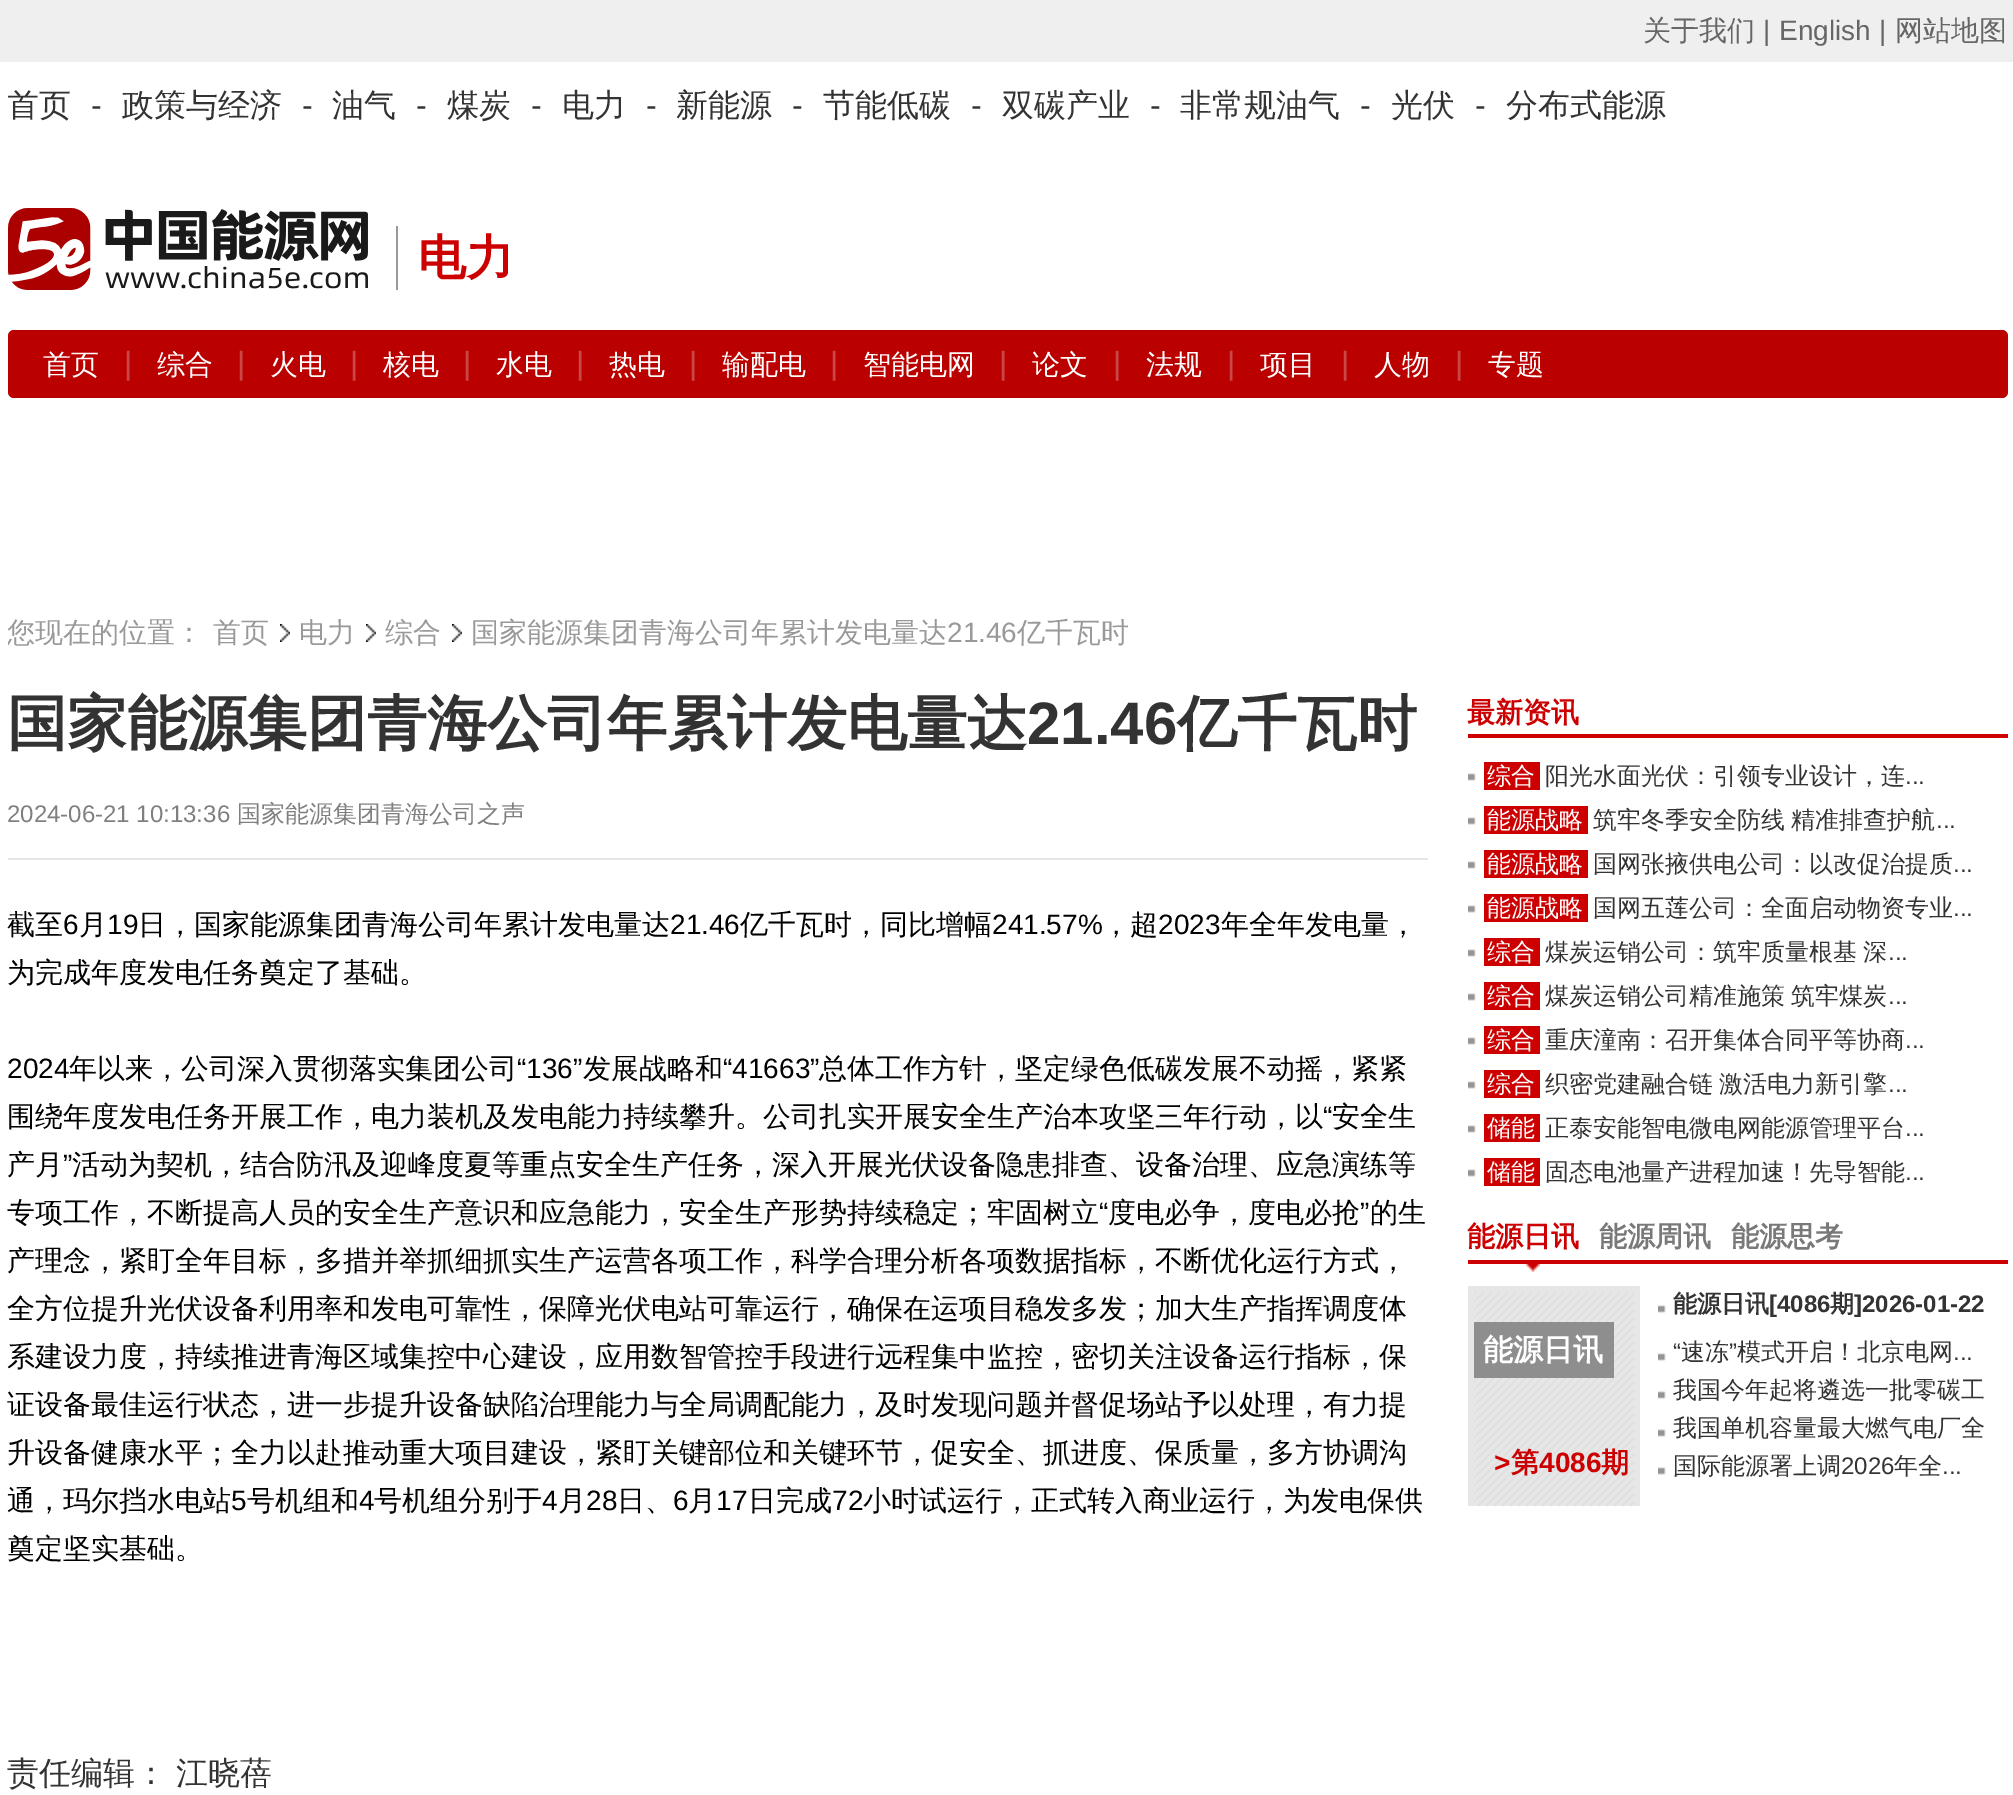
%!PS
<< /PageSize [2013 1795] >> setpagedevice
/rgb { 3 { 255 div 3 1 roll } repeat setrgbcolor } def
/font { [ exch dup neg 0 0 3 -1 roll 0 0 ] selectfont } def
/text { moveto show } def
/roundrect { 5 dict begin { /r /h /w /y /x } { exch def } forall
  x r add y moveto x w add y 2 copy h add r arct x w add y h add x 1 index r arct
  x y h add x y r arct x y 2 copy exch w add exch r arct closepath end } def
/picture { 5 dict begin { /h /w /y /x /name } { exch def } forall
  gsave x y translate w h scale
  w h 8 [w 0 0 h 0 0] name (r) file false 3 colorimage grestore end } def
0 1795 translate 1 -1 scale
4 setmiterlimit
255 255 255 rgb
0 0 2013 1795 rectfill
239 239 239 rgb
0 0 2013 62 rectfill
(img_01.rgb) 8 208 360 82 picture
153 153 153 rgb
396 226 2 64 rectfill
187 0 0 rgb
8 330 2000 68 6 roundrect fill
(img_02.rgb) 280 624 10 18 picture
(img_02.rgb) 366 624 10 18 picture
(img_02.rgb) 452 624 10 18 picture
229 229 229 rgb
8 858 1420 2 rectfill
204 0 0 rgb
1468 734 540 4 rectfill
(img_03.rgb) 1468 773 8 8 picture
1484 762 56 28 rectfill
(img_03.rgb) 1468 817 8 8 picture
1484 806 104 28 rectfill
(img_03.rgb) 1468 861 8 8 picture
1484 850 104 28 rectfill
(img_03.rgb) 1468 905 8 8 picture
1484 894 104 28 rectfill
(img_03.rgb) 1468 949 8 8 picture
1484 938 56 28 rectfill
(img_03.rgb) 1468 993 8 8 picture
1484 982 56 28 rectfill
(img_03.rgb) 1468 1037 8 8 picture
1484 1026 56 28 rectfill
(img_03.rgb) 1468 1081 8 8 picture
1484 1070 56 28 rectfill
(img_03.rgb) 1468 1125 8 8 picture
1484 1114 56 28 rectfill
(img_03.rgb) 1468 1169 8 8 picture
1484 1158 56 28 rectfill
1468 1260 540 4 rectfill
(img_04.rgb) 1526 1264 14 8 picture
230 230 230 rgb
1468 1286 172 220 rectfill
(img_05.rgb) 1474 1292 160 214 picture
142 142 142 rgb
1474 1322 140 56 rectfill
(img_03.rgb) 1658 1305 8 8 picture
(img_03.rgb) 1658 1353 8 8 picture
(img_03.rgb) 1658 1391 8 8 picture
(img_03.rgb) 1658 1429 8 8 picture
(img_03.rgb) 1658 1467 8 8 picture
/WenQuanYiZenHei-Medium 28 font
102 102 102 rgb
(关于我们) 1643 40 text
/LiberationSans-Regular 28 font
(|) 1763 40 text
(English |) 1779 40 text
/WenQuanYiZenHei-Medium 28 font
(网站地图) 1895 40 text
gsave
8 82 2000 48 rectclip
/WenQuanYiZenHei-Medium 32 font
51 51 51 rgb
(首页) 7 116 text
grestore
/LiberationSans-Regular 32 font
51 51 51 rgb
(-) 91 116 text
/WenQuanYiZenHei-Medium 32 font
(政策与经济) 122 116 text
/LiberationSans-Regular 32 font
(-) 302 116 text
/WenQuanYiZenHei-Medium 32 font
(油气) 332 116 text
/LiberationSans-Regular 32 font
(-) 416 116 text
/WenQuanYiZenHei-Medium 32 font
(煤炭) 447 116 text
/LiberationSans-Regular 32 font
(-) 531 116 text
/WenQuanYiZenHei-Medium 32 font
(电力) 562 116 text
/LiberationSans-Regular 32 font
(-) 646 116 text
/WenQuanYiZenHei-Medium 32 font
(新能源) 676 116 text
/LiberationSans-Regular 32 font
(-) 792 116 text
/WenQuanYiZenHei-Medium 32 font
(节能低碳) 823 116 text
/LiberationSans-Regular 32 font
(-) 971 116 text
/WenQuanYiZenHei-Medium 32 font
(双碳产业) 1002 116 text
/LiberationSans-Regular 32 font
(-) 1150 116 text
/WenQuanYiZenHei-Medium 32 font
(非常规油气) 1180 116 text
/LiberationSans-Regular 32 font
(-) 1360 116 text
/WenQuanYiZenHei-Medium 32 font
(光伏) 1391 116 text
/LiberationSans-Regular 32 font
(-) 1475 116 text
/WenQuanYiZenHei-Medium 32 font
(分布式能源) 1506 116 text
/WenQuanYiZenHei-Bold 48 font
204 0 0 rgb
(电力) 418 274 text
/WenQuanYiZenHei-Medium 28 font
255 255 255 rgb
(首页) 43 374 text
/LiberationSans-Regular 32 font
202 71 71 rgb
(|) 124 374 text
/WenQuanYiZenHei-Medium 28 font
255 255 255 rgb
(综合) 157 374 text
/LiberationSans-Regular 32 font
202 71 71 rgb
(|) 237 374 text
/WenQuanYiZenHei-Medium 28 font
255 255 255 rgb
(火电) 270 374 text
/LiberationSans-Regular 32 font
202 71 71 rgb
(|) 350 374 text
/WenQuanYiZenHei-Medium 28 font
255 255 255 rgb
(核电) 383 374 text
/LiberationSans-Regular 32 font
202 71 71 rgb
(|) 463 374 text
/WenQuanYiZenHei-Medium 28 font
255 255 255 rgb
(水电) 496 374 text
/LiberationSans-Regular 32 font
202 71 71 rgb
(|) 576 374 text
/WenQuanYiZenHei-Medium 28 font
255 255 255 rgb
(热电) 609 374 text
/LiberationSans-Regular 32 font
202 71 71 rgb
(|) 689 374 text
/WenQuanYiZenHei-Medium 28 font
255 255 255 rgb
(输配电) 722 374 text
/LiberationSans-Regular 32 font
202 71 71 rgb
(|) 830 374 text
/WenQuanYiZenHei-Medium 28 font
255 255 255 rgb
(智能电网) 863 374 text
/LiberationSans-Regular 32 font
202 71 71 rgb
(|) 999 374 text
/WenQuanYiZenHei-Medium 28 font
255 255 255 rgb
(论文) 1032 374 text
/LiberationSans-Regular 32 font
202 71 71 rgb
(|) 1113 374 text
/WenQuanYiZenHei-Medium 28 font
255 255 255 rgb
(法规) 1146 374 text
/LiberationSans-Regular 32 font
202 71 71 rgb
(|) 1227 374 text
/WenQuanYiZenHei-Medium 28 font
255 255 255 rgb
(项目) 1260 374 text
/LiberationSans-Regular 32 font
202 71 71 rgb
(|) 1341 374 text
/WenQuanYiZenHei-Medium 28 font
255 255 255 rgb
(人物) 1374 374 text
/LiberationSans-Regular 32 font
202 71 71 rgb
(|) 1455 374 text
/WenQuanYiZenHei-Medium 28 font
255 255 255 rgb
(专题) 1488 374 text
gsave
8 598 2000 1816 rectclip
153 153 153 rgb
(您现在的位置：) 7 642 text
grestore
153 153 153 rgb
(首页) 213 642 text
(电力) 299 642 text
(综合) 385 642 text
(国家能源集团青海公司年累计发电量达) 471 642 text
/LiberationSans-Regular 28 font
(21.46) 947 642 text
/WenQuanYiZenHei-Medium 28 font
(亿千瓦时) 1017 642 text
/WenQuanYiZenHei-Bold 60 font
51 51 51 rgb
(国家能源集团青海公司年累计发电量达) 7 744 text
/LiberationSans-Bold 60 font
(21.46) 1027 744 text
/WenQuanYiZenHei-Bold 60 font
(亿千瓦时) 1177 744 text
/LiberationSans-Regular 24 font
127 127 127 rgb
(2024-06-21 10:13:36) 7 822 text
/WenQuanYiZenHei-Medium 24 font
(国家能源集团青海公司之声) 237 822 text
/WenQuanYiZenHei-Medium 28 font
0 0 0 rgb
(截至) 7 934 text
/LiberationSans-Regular 28 font
(6) 63 934 text
/WenQuanYiZenHei-Medium 28 font
(月) 79 934 text
/LiberationSans-Regular 28 font
(19) 107 934 text
/WenQuanYiZenHei-Medium 28 font
(日，国家能源集团青海公司年累计发电量达) 138 934 text
/LiberationSans-Regular 28 font
(21.46) 670 934 text
/WenQuanYiZenHei-Medium 28 font
(亿千瓦时，同比增幅) 740 934 text
/LiberationSans-Regular 28 font
(241.57%) 992 934 text
/WenQuanYiZenHei-Medium 28 font
(，超) 1102 934 text
/LiberationSans-Regular 28 font
(2023) 1158 934 text
/WenQuanYiZenHei-Medium 28 font
(年全年发电量，) 1221 934 text
(为完成年度发电任务奠定了基础。) 7 982 text
/LiberationSans-Regular 28 font
(2024) 7 1078 text
/WenQuanYiZenHei-Medium 28 font
(年以来，公司深入贯彻落实集团公司) 69 1078 text
/LiberationSans-Regular 28 font
(“136”) 517 1078 text
/WenQuanYiZenHei-Medium 28 font
(发展战略和) 583 1078 text
/LiberationSans-Regular 28 font
(“41663”) 723 1078 text
/WenQuanYiZenHei-Medium 28 font
(总体工作方针，坚定绿色低碳发展不动摇，紧紧) 819 1078 text
(围绕年度发电任务开展工作，电力装机及发电能力持续攀升。公司扎实开展安全生产治本攻坚三年行动，以) 7 1126 text
/LiberationSans-Regular 28 font
(“) 1323 1126 text
/WenQuanYiZenHei-Medium 28 font
(安全生) 1332 1126 text
(产月) 7 1174 text
/LiberationSans-Regular 28 font
(”) 63 1174 text
/WenQuanYiZenHei-Medium 28 font
(活动为契机，结合防汛及迎峰度夏等重点安全生产任务，深入开展光伏设备隐患排查、设备治理、应急演练等) 72 1174 text
(专项工作，不断提高人员的安全生产意识和应急能力，安全生产形势持续稳定；牢固树立) 7 1222 text
/LiberationSans-Regular 28 font
(“) 1099 1222 text
/WenQuanYiZenHei-Medium 28 font
(度电必争，度电必抢) 1108 1222 text
/LiberationSans-Regular 28 font
(”) 1360 1222 text
/WenQuanYiZenHei-Medium 28 font
(的生) 1370 1222 text
(产理念，紧盯全年目标，多措并举抓细抓实生产运营各项工作，科学合理分析各项数据指标，不断优化运行方式，) 7 1270 text
(全方位提升光伏设备利用率和发电可靠性，保障光伏电站可靠运行，确保在运项目稳发多发；加大生产指挥调度体) 7 1318 text
(系建设力度，持续推进青海区域集控中心建设，应用数智管控手段进行远程集中监控，密切关注设备运行指标，保) 7 1366 text
(证设备最佳运行状态，进一步提升设备缺陷治理能力与全局调配能力，及时发现问题并督促场站予以处理，有力提) 7 1414 text
(升设备健康水平；全力以赴推动重大项目建设，紧盯关键部位和关键环节，促安全、抓进度、保质量，多方协调沟) 7 1462 text
(通，玛尔挡水电站) 7 1510 text
/LiberationSans-Regular 28 font
(5) 231 1510 text
/WenQuanYiZenHei-Medium 28 font
(号机组和) 247 1510 text
/LiberationSans-Regular 28 font
(4) 359 1510 text
/WenQuanYiZenHei-Medium 28 font
(号机组分别于) 374 1510 text
/LiberationSans-Regular 28 font
(4) 542 1510 text
/WenQuanYiZenHei-Medium 28 font
(月) 558 1510 text
/LiberationSans-Regular 28 font
(28) 586 1510 text
/WenQuanYiZenHei-Medium 28 font
(日、) 617 1510 text
/LiberationSans-Regular 28 font
(6) 673 1510 text
/WenQuanYiZenHei-Medium 28 font
(月) 688 1510 text
/LiberationSans-Regular 28 font
(17) 716 1510 text
/WenQuanYiZenHei-Medium 28 font
(日完成) 748 1510 text
/LiberationSans-Regular 28 font
(72) 832 1510 text
/WenQuanYiZenHei-Medium 28 font
(小时试运行，正式转入商业运行，为发电保供) 863 1510 text
(奠定坚实基础。) 7 1558 text
/WenQuanYiZenHei-Medium 32 font
51 51 51 rgb
(责任编辑：) 7 1784 text
(江晓蓓) 176 1784 text
/WenQuanYiZenHei-Bold 28 font
204 0 0 rgb
(最新资讯) 1467 722 text
/WenQuanYiZenHei-Medium 24 font
255 255 255 rgb
(综合) 1487 784 text
51 51 51 rgb
(阳光水面光伏：引领专业设计，连) 1545 784 text
/LiberationSans-Regular 24 font
(...) 1905 784 text
/WenQuanYiZenHei-Medium 24 font
255 255 255 rgb
(能源战略) 1487 828 text
51 51 51 rgb
1593 828 moveto -1 0 32 (筑牢冬季安全防线 精准排查护航) widthshow
/LiberationSans-Regular 24 font
(...) 1936 828 text
/WenQuanYiZenHei-Medium 24 font
255 255 255 rgb
(能源战略) 1487 872 text
51 51 51 rgb
(国网张掖供电公司：以改促治提质) 1593 872 text
/LiberationSans-Regular 24 font
(...) 1953 872 text
/WenQuanYiZenHei-Medium 24 font
255 255 255 rgb
(能源战略) 1487 916 text
51 51 51 rgb
(国网五莲公司：全面启动物资专业) 1593 916 text
/LiberationSans-Regular 24 font
(...) 1953 916 text
/WenQuanYiZenHei-Medium 24 font
255 255 255 rgb
(综合) 1487 960 text
51 51 51 rgb
1545 960 moveto -1 0 32 (煤炭运销公司：筑牢质量根基 深) widthshow
/LiberationSans-Regular 24 font
(...) 1888 960 text
/WenQuanYiZenHei-Medium 24 font
255 255 255 rgb
(综合) 1487 1004 text
51 51 51 rgb
1545 1004 moveto -1 0 32 (煤炭运销公司精准施策 筑牢煤炭) widthshow
/LiberationSans-Regular 24 font
(...) 1888 1004 text
/WenQuanYiZenHei-Medium 24 font
255 255 255 rgb
(综合) 1487 1048 text
51 51 51 rgb
(重庆潼南：召开集体合同平等协商) 1545 1048 text
/LiberationSans-Regular 24 font
(...) 1905 1048 text
/WenQuanYiZenHei-Medium 24 font
255 255 255 rgb
(综合) 1487 1092 text
51 51 51 rgb
1545 1092 moveto -1 0 32 (织密党建融合链 激活电力新引擎) widthshow
/LiberationSans-Regular 24 font
(...) 1888 1092 text
/WenQuanYiZenHei-Medium 24 font
255 255 255 rgb
(储能) 1487 1136 text
51 51 51 rgb
(正泰安能智电微电网能源管理平台) 1545 1136 text
/LiberationSans-Regular 24 font
(...) 1905 1136 text
/WenQuanYiZenHei-Medium 24 font
255 255 255 rgb
(储能) 1487 1180 text
51 51 51 rgb
(固态电池量产进程加速！先导智能) 1545 1180 text
/LiberationSans-Regular 24 font
(...) 1905 1180 text
/WenQuanYiZenHei-Bold 28 font
204 0 0 rgb
(能源日讯) 1467 1246 text
121 121 121 rgb
(能源周讯) 1599 1246 text
(能源思考) 1731 1246 text
/WenQuanYiZenHei-Bold 30 font
255 255 255 rgb
(能源日讯) 1483 1360 text
/LiberationSans-Bold 28 font
204 0 0 rgb
(>) 1494 1472 text
/WenQuanYiZenHei-Bold 28 font
(第) 1511 1472 text
/LiberationSans-Bold 28 font
(4086) 1539 1472 text
/WenQuanYiZenHei-Bold 28 font
(期) 1601 1472 text
/WenQuanYiZenHei-Bold 24 font
51 51 51 rgb
(能源日讯) 1673 1312 text
/LiberationSans-Bold 24 font
([4086) 1769 1312 text
/WenQuanYiZenHei-Bold 24 font
(期) 1830 1312 text
/LiberationSans-Bold 24 font
(]2026-01-22) 1854 1312 text
/LiberationSans-Regular 24 font
(“) 1673 1360 text
/WenQuanYiZenHei-Medium 24 font
(速冻) 1681 1360 text
/LiberationSans-Regular 24 font
(”) 1729 1360 text
/WenQuanYiZenHei-Medium 24 font
(模式开启！北京电网) 1737 1360 text
/LiberationSans-Regular 24 font
(...) 1953 1360 text
/WenQuanYiZenHei-Medium 24 font
(我国今年起将遴选一批零碳工) 1673 1398 text
(我国单机容量最大燃气电厂全) 1673 1436 text
(国际能源署上调) 1673 1474 text
/LiberationSans-Regular 24 font
(2026) 1841 1474 text
/WenQuanYiZenHei-Medium 24 font
(年全) 1894 1474 text
/LiberationSans-Regular 24 font
(...) 1942 1474 text
showpage
